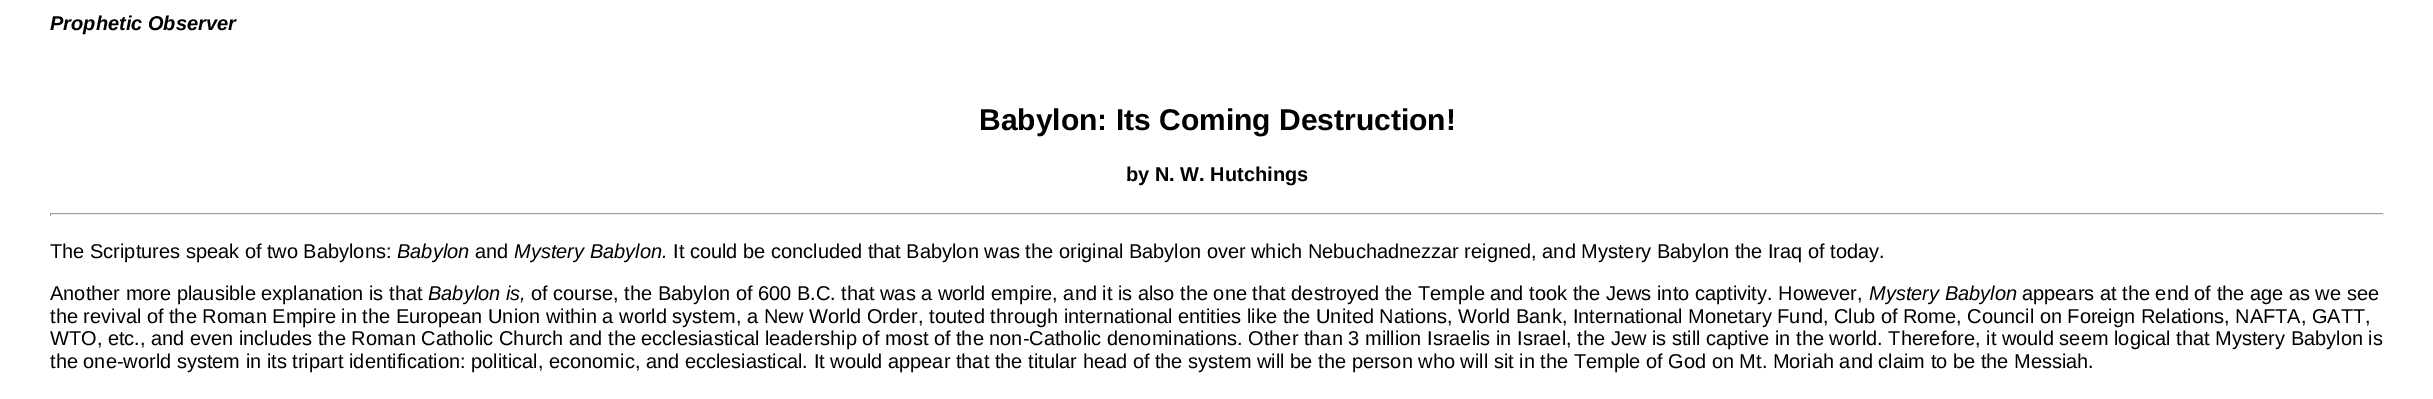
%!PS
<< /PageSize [2433 399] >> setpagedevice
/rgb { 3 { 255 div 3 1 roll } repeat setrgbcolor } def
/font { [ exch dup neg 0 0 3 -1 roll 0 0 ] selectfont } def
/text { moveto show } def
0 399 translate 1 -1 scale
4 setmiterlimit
255 255 255 rgb
0 0 2433 399 rectfill
159 159 159 rgb
50 213 2334 1 rectfill
238 238 238 rgb
2383 213 1 3 rectfill
50 214 2334 1 rectfill
159 159 159 rgb
50 213 1 3 rectfill
/LiberationSans-BoldItalic 20 font
0 0 0 rgb
(Prophetic Observer) 50 30 text
/LiberationSans-Bold 30 font
(Babylon: Its Coming Destruction!) 979 130 text
/LiberationSans-Bold 20 font
(by N. W. Hutchings) 1126 181 text
/LiberationSans-Regular 20 font
(The Scriptures speak of two Babylons:) 50 258 text
/LiberationSans-Italic 20 font
(Babylon) 397 258 text
/LiberationSans-Regular 20 font
(and) 475 258 text
/LiberationSans-Italic 20 font
(Mystery Babylon.) 514 258 text
/LiberationSans-Regular 20 font
(It could be concluded that Babylon was the original Babylon over which Nebuchadnezzar reigned, and Mystery Babylon the Iraq of today.) 673 258 text
(Another more plausible explanation is that) 50 300 text
/LiberationSans-Italic 20 font
(Babylon is,) 428 300 text
/LiberationSans-Regular 20 font
(of course, the Babylon of 600 B.C. that was a world empire, and it is also the one that destroyed the Temple and took the Jews into captivity. However,) 531 300 text
/LiberationSans-Italic 20 font
(Mystery Babylon) 1869 300 text
/LiberationSans-Regular 20 font
(appears at the end of the age as we see) 2022 300 text
(the revival of the Roman Empire in the European Union within a world system, a New World Order, touted through international entities like the United Nations, World Bank, International Monetary Fund, Club of Rome, Council on Foreign Relations, NAFTA, GATT,) 50 323 text
(WTO, etc., and even includes the Roman Catholic Church and the ecclesiastical leadership of most of the non-Catholic denominations. Other than 3 million Israelis in Israel, the Jew is still captive in the world. Therefore, it would seem logical that Mystery Babylon is) 50 345 text
(the one-world system in its tripart identification: political, economic, and ecclesiastical. It would appear that the titular head of the system will be the person who will sit in the Temple of God on Mt. Moriah and claim to be the Messiah.) 50 368 text
showpage
